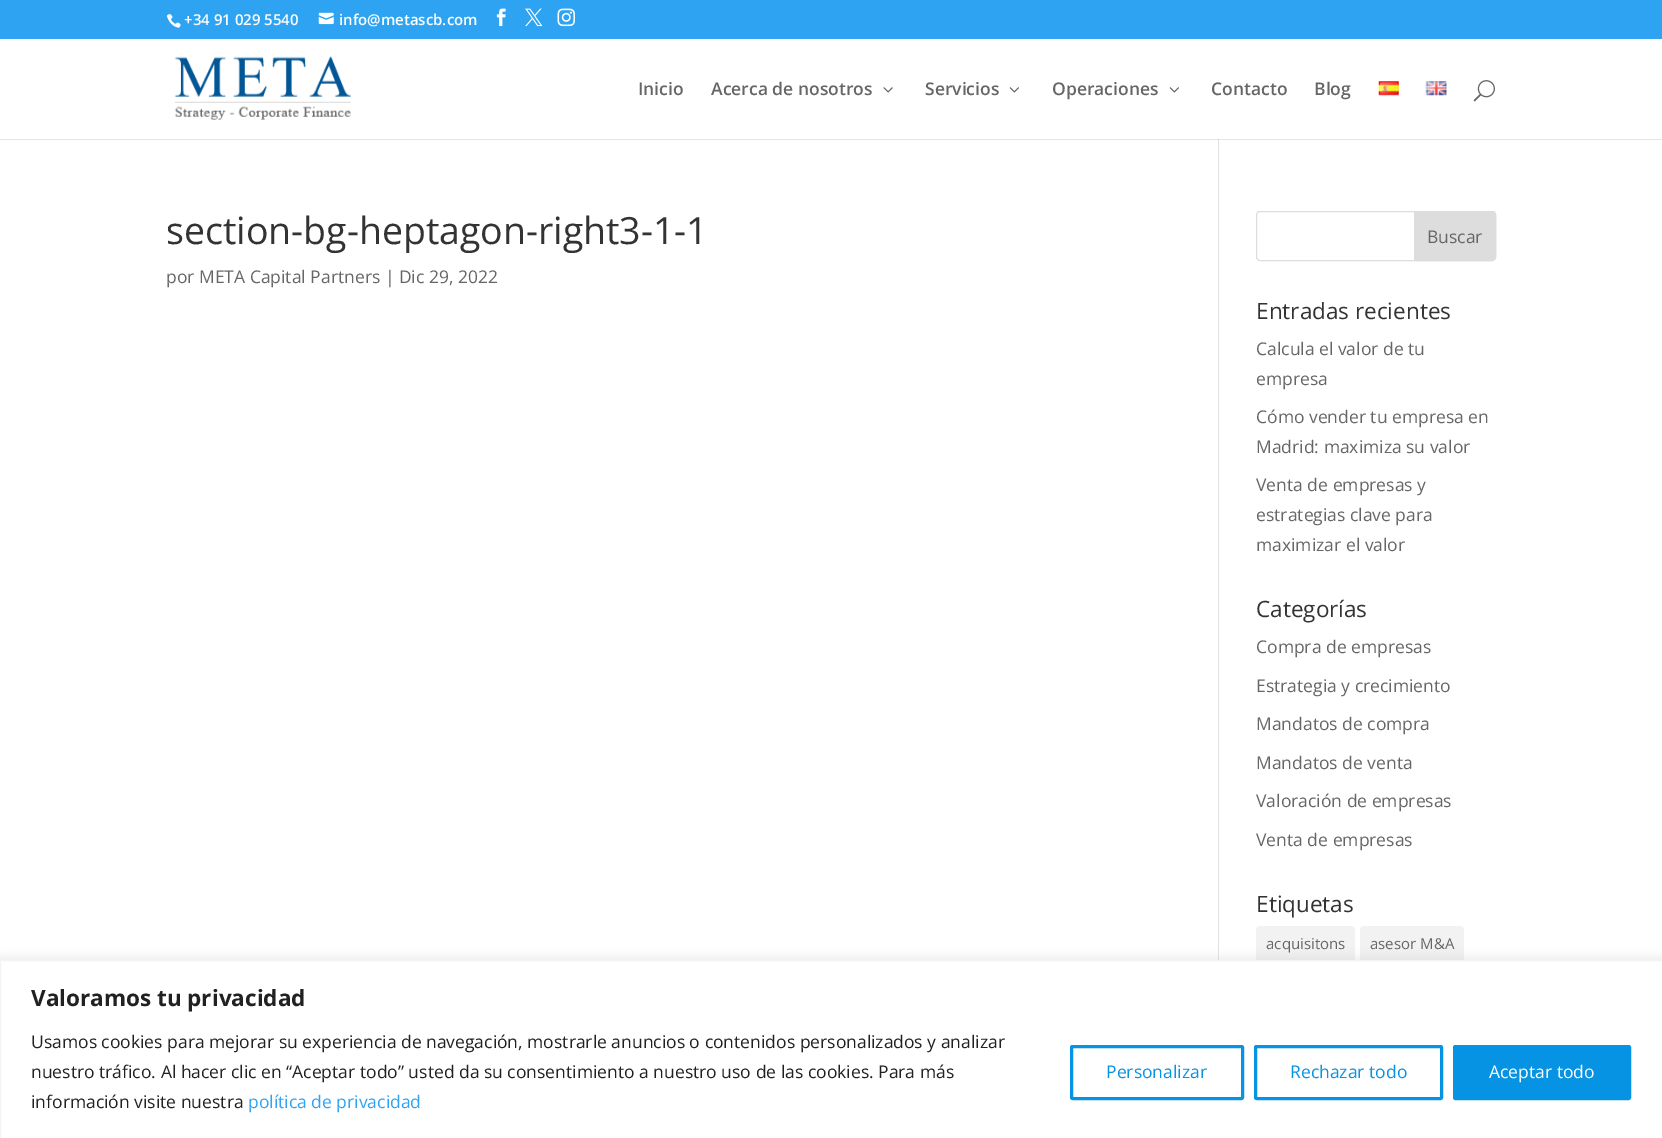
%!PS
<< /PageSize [1662 1138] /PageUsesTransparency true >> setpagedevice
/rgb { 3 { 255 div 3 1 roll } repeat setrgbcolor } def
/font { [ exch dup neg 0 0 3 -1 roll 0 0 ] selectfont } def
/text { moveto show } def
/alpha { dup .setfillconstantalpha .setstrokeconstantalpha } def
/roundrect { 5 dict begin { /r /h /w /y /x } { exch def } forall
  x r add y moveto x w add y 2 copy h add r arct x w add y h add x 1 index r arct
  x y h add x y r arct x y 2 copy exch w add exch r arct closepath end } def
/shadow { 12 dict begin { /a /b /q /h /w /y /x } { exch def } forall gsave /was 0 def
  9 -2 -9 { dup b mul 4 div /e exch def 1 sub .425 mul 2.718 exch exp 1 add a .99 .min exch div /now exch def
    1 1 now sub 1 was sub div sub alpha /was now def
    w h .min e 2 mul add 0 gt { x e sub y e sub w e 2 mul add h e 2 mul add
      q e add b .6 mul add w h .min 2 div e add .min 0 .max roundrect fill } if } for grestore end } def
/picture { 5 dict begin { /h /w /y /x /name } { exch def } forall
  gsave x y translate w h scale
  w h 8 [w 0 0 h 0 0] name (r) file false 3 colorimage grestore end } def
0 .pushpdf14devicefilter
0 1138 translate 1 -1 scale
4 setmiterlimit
255 255 255 rgb
0 0 1662 1138 rectfill
46 163 242 rgb
0 0 1662 39 rectfill
(img_01.rgb) 166 14 15 14 picture
(img_02.rgb) 318 12 16 13 picture
(img_03.rgb) 496 8 10 19 picture
(img_04.rgb) 525 8 18 19 picture
(img_05.rgb) 557 8 18 19 picture
226 226 226 rgb
1218 139 1 821 rectfill
0.1 alpha
0 0 0 rgb
0 139 moveto 0 1 rlineto 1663 0 rlineto 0 -100 rlineto -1 0 rlineto 0 99 rlineto closepath fill
1 alpha
(img_06.rgb) 174 56 177 64 picture
(img_07.rgb) 883 87 10 6 picture
(img_08.rgb) 1009 87 10 6 picture
(img_08.rgb) 1169 87 10 6 picture
(img_09.rgb) 1378 81 21 15 picture
(img_10.rgb) 1425 81 22 15 picture
(img_11.rgb) 1473 80 22 22 picture
221 221 221 rgb
1256.5 211.5 239 49 3.5 roundrect stroke
1414.5 211.5 moveto 77.5 0 rlineto 2 0 3.5 1.5 3.5 3.5 rcurveto 0 42 rlineto 0 2 -1.5 3.5 -3.5 3.5 rcurveto -77.5 0 rlineto closepath gsave fill grestore
stroke
242 242 242 rgb
1256 926 99 35 4 roundrect fill
1360 926 104 35 4 roundrect fill
172 171 171 rgb
0 959 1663 179 0 6 0.3 shadow
255 255 255 rgb
0.5 960.5 moveto 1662 0 rlineto 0 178 rlineto -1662 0 rlineto closepath gsave fill grestore
244 244 244 rgb
stroke
6 147 227 rgb
3 setlinewidth
1071.5 1046.5 171 52 1 roundrect stroke
1255.5 1046.5 186 52 1 roundrect stroke
1454.5 1046.5 175 52 1 roundrect gsave fill grestore
stroke
/OpenSans-SemiBold 15 font
255 255 255 rgb
(+34 91 029 5540) 184 25 text
(info@metascb.com) 339 25 text
/OpenSans-SemiBold 17.5 font
102 102 102 rgb
(Inicio) 638 95 text
(Acerca de nosotros) 711 95 text
(Servicios) 925 95 text
(Operaciones) 1052 95 text
(Contacto) 1211 95 text
(Blog) 1314 95 text
/OpenSans-Regular 37.5 font
51 51 51 rgb
(section-bg-heptagon-right3-1-1) 166 244 text
/OpenSans-Regular 17.5 font
102 102 102 rgb
(por META Capital Partners | Dic 29, 2022) 166 283 text
(Buscar) 1427 243 text
/OpenSans-Regular 22.5 font
51 51 51 rgb
(Entradas recientes) 1256 319 text
/OpenSans-Regular 17.5 font
102 102 102 rgb
(Calcula el valor de tu) 1256 355 text
(empresa) 1256 385 text
(Cómo vender tu empresa en) 1256 423 text
(Madrid: maximiza su valor) 1256 453 text
(Venta de empresas y) 1256 491 text
(estrategias clave para) 1256 521 text
(maximizar el valor) 1256 551 text
/OpenSans-Regular 22.5 font
51 51 51 rgb
(Categorías) 1256 617 text
/OpenSans-Regular 17.5 font
102 102 102 rgb
(Compra de empresas) 1256 653 text
(Estrategia y crecimiento) 1256 692 text
(Mandatos de compra) 1256 730 text
(Mandatos de venta) 1256 769 text
(Valoración de empresas) 1256 807 text
(Venta de empresas) 1256 846 text
/OpenSans-Regular 22.5 font
51 51 51 rgb
(Etiquetas) 1256 912 text
/OpenSans-Regular 15 font
102 102 102 rgb
(acquisitons) 1266 949 text
(asesor M&A) 1370 949 text
/OpenSans-Bold 22.5 font
33 33 33 rgb
(Valoramos tu privacidad) 31 1006 text
/OpenSans-Regular 17.5 font
(Usamos cookies para mejorar su experiencia de navegación, mostrarle anuncios o contenidos personalizados y analizar) 31 1048 text
(nuestro tráfico. Al hacer clic en “Aceptar todo” usted da su consentimiento a nuestro uso de las cookies. Para más) 31 1078 text
(información visite nuestra) 31 1108 text
46 163 242 rgb
(política de privacidad) 248 1108 text
6 147 227 rgb
(Personalizar) 1106 1078 text
(Rechazar todo) 1290 1078 text
255 255 255 rgb
(Aceptar todo) 1489 1078 text
.poppdf14devicefilter showpage
